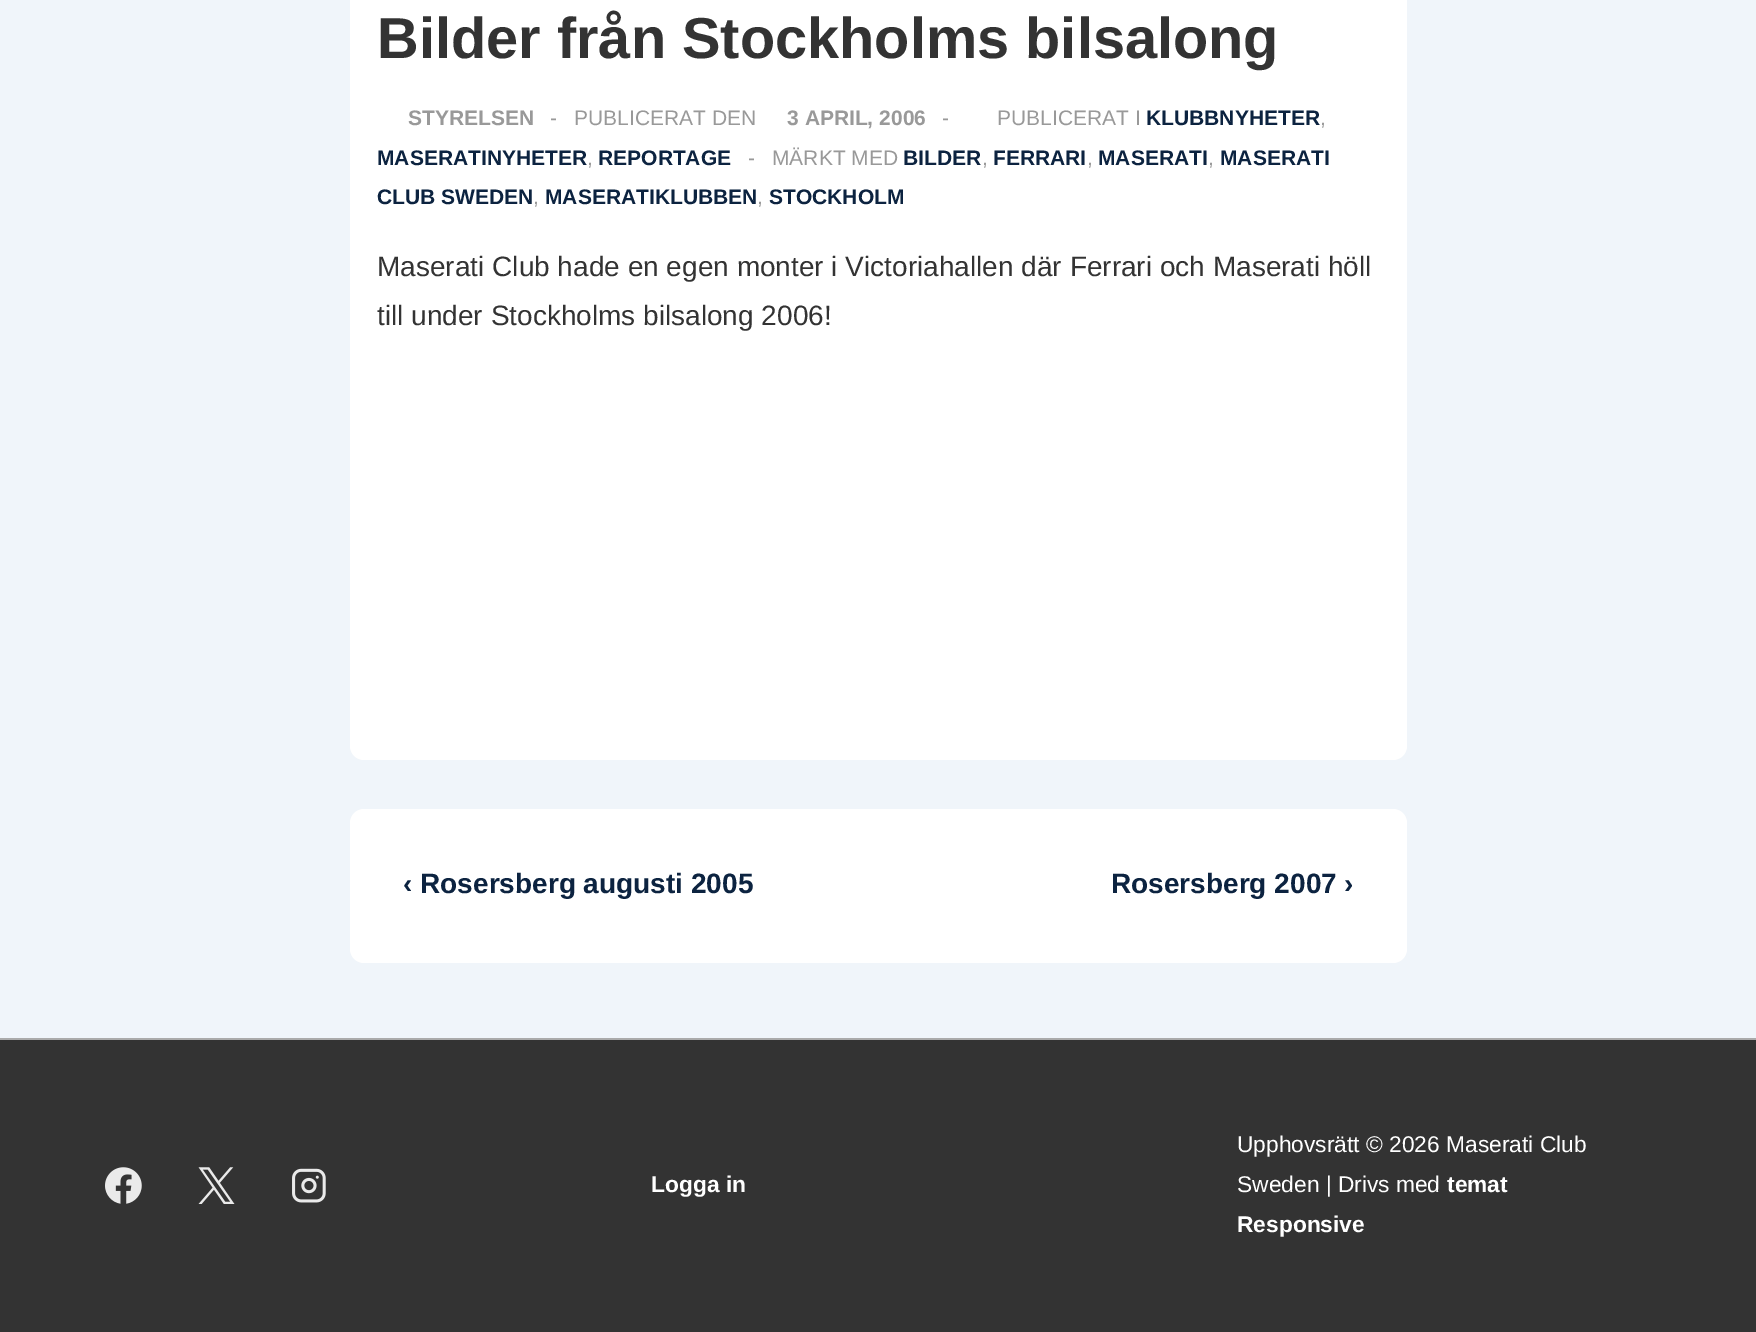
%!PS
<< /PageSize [1756 1332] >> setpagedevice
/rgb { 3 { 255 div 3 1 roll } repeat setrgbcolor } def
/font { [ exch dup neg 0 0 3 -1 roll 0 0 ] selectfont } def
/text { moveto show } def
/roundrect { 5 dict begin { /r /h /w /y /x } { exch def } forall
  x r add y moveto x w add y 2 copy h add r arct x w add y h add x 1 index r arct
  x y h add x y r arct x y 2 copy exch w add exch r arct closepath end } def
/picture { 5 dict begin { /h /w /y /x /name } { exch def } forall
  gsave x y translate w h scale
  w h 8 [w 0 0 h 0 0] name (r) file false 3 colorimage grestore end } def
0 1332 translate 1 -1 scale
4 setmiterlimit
240 245 250 rgb
0 0 1756 1332 rectfill
255 255 255 rgb
350 -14 1057 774 14 roundrect fill
350 809 1057 154 14 roundrect fill
51 51 51 rgb
0 1040 1756 292 rectfill
170 170 170 rgb
0 1038 1756 2 rectfill
(img_01.rgb) 105 1167 37 37 picture
(img_02.rgb) 198 1167 37 37 picture
(img_03.rgb) 292 1168 34 35 picture
/LiberationSans-Bold 57.75 font
51 51 51 rgb
(Bilder från Stockholms bilsalong) 377 58 text
/LiberationSans-Bold 21 font
153 153 153 rgb
(STYRELSEN) 408 125 text
/LiberationSans-Regular 21 font
(-) 550 125 text
(PUBLICERAT DEN) 574 125 text
/LiberationSans-Bold 21 font
(3 APRIL, 2006) 787 125 text
/LiberationSans-Regular 21 font
(-) 942 125 text
(PUBLICERAT I) 997 125 text
/LiberationSans-Bold 21 font
12 35 64 rgb
(KLUBBNYHETER) 1146 125 text
/LiberationSans-Regular 21 font
153 153 153 rgb
(,) 1320 125 text
/LiberationSans-Bold 21 font
12 35 64 rgb
(MASERATINYHETER) 377 165 text
(REPORTAGE) 598 165 text
/LiberationSans-Regular 21 font
153 153 153 rgb
(-) 748 165 text
(MÄRKT MED) 772 165 text
/LiberationSans-Bold 21 font
12 35 64 rgb
(BILDER) 903 165 text
(FERRARI) 993 165 text
(MASERATI) 1098 165 text
(MASERATI) 1220 165 text
/LiberationSans-Regular 21 font
153 153 153 rgb
(,) 587 165 text
(,) 982 165 text
(,) 1087 165 text
(,) 1208 165 text
/LiberationSans-Bold 21 font
12 35 64 rgb
(CLUB SWEDEN) 377 204 text
/LiberationSans-Regular 21 font
153 153 153 rgb
(,) 533 204 text
/LiberationSans-Bold 21 font
12 35 64 rgb
(MASERATIKLUBBEN) 545 204 text
/LiberationSans-Regular 21 font
153 153 153 rgb
(,) 757 204 text
/LiberationSans-Bold 21 font
12 35 64 rgb
(STOCKHOLM) 769 204 text
/LiberationSans-Regular 28 font
51 51 51 rgb
(Maserati Club hade en egen monter i Victoriahallen där Ferrari och Maserati höll) 377 276 text
(till under Stockholms bilsalong 2006!) 377 325 text
/LiberationSans-Bold 28 font
12 35 64 rgb
(‹ Rosersberg augusti 2005) 403 893 text
(Rosersberg 2007 ›) 1111 893 text
/LiberationSans-Bold 22.75 font
255 255 255 rgb
(Logga in) 651 1192 text
/LiberationSans-Regular 22.75 font
(Upphovsrätt © 2026 Maserati Club) 1237 1152 text
(Sweden | Drivs med) 1237 1192 text
/LiberationSans-Bold 22.75 font
(temat) 1447 1192 text
(Responsive) 1237 1232 text
showpage
